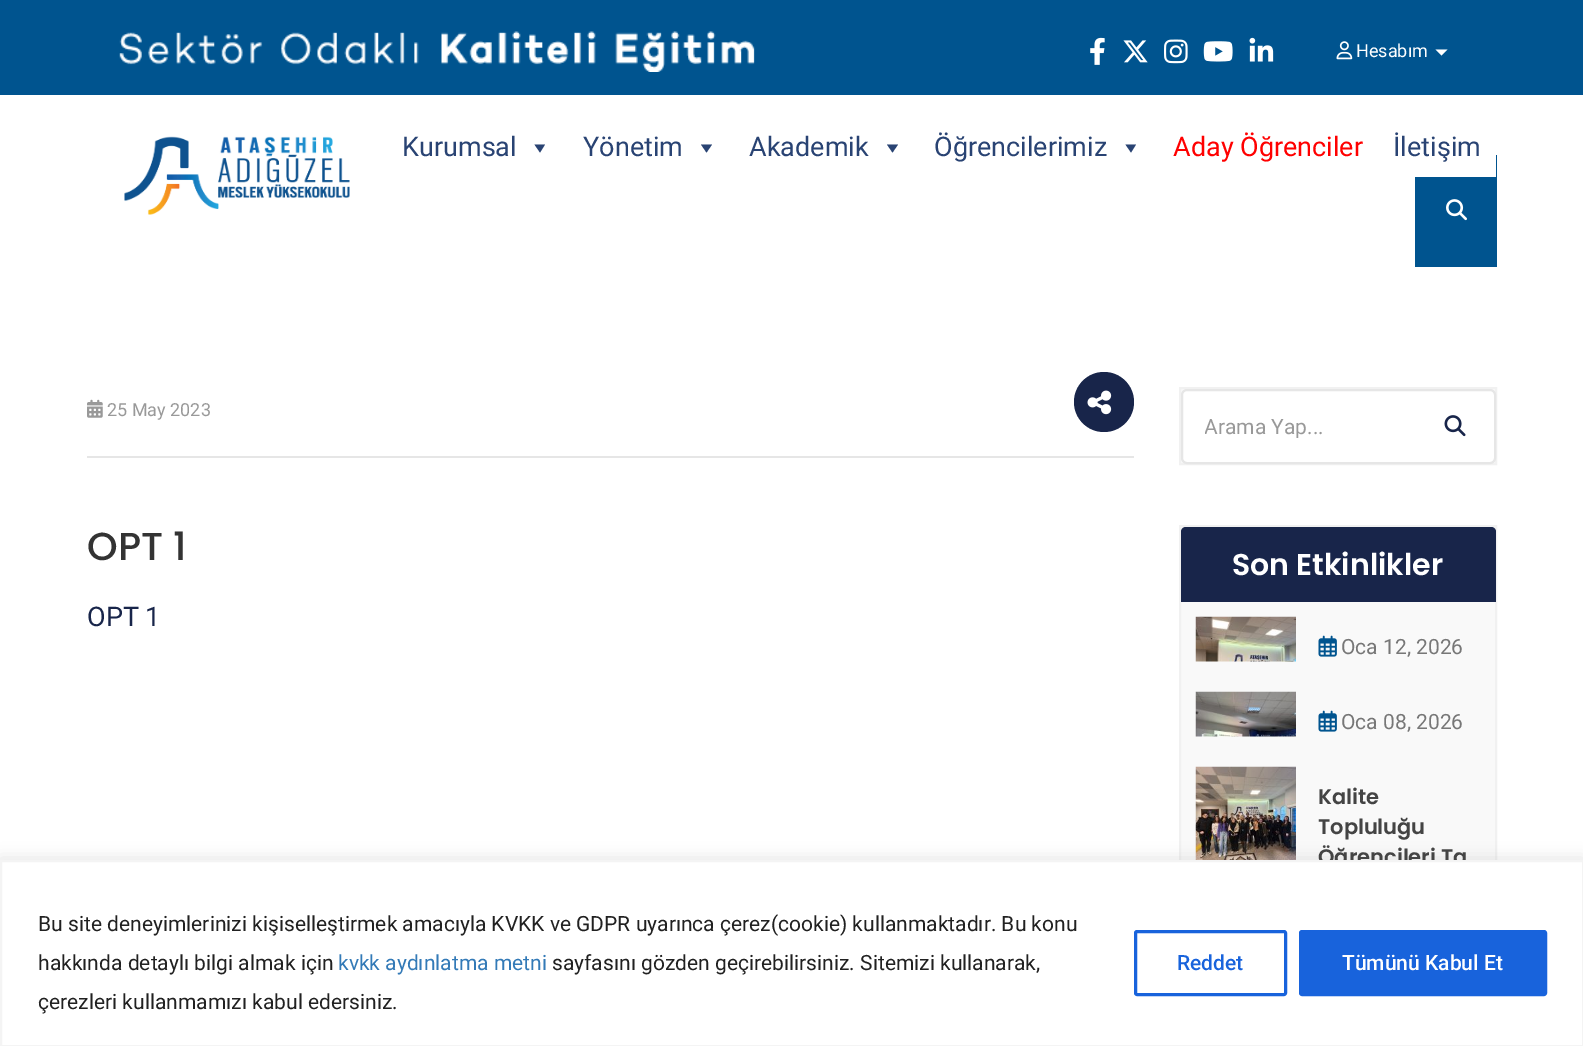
%!PS
<< /PageSize [1583 1046] /PageUsesTransparency true >> setpagedevice
/rgb { 3 { 255 div 3 1 roll } repeat setrgbcolor } def
/font { [ exch dup neg 0 0 3 -1 roll 0 0 ] selectfont } def
/text { moveto show } def
/alpha { dup .setfillconstantalpha .setstrokeconstantalpha } def
/circle { newpath 0 360 arc closepath } def
/roundrect { 5 dict begin { /r /h /w /y /x } { exch def } forall
  x r add y moveto x w add y 2 copy h add r arct x w add y h add x 1 index r arct
  x y h add x y r arct x y 2 copy exch w add exch r arct closepath end } def
/shadow { 12 dict begin { /a /b /q /h /w /y /x } { exch def } forall gsave /was 0 def
  9 -2 -9 { dup b mul 4 div /e exch def 1 sub .425 mul 2.718 exch exp 1 add a .99 .min exch div /now exch def
    1 1 now sub 1 was sub div sub alpha /was now def
    w h .min e 2 mul add 0 gt { x e sub y e sub w e 2 mul add h e 2 mul add
      q e add b .6 mul add w h .min 2 div e add .min 0 .max roundrect fill } if } for grestore end } def
/picture { 5 dict begin { /h /w /y /x /name } { exch def } forall
  gsave x y translate w h scale
  w h 8 [w 0 0 h 0 0] name (r) file false 3 colorimage grestore end } def
0 .pushpdf14devicefilter
0 1046 translate 1 -1 scale
4 setmiterlimit
255 255 255 rgb
0 0 1583 1046 rectfill
0 84 143 rgb
0 0 1583 95 rectfill
(img_01.rgb) 119 31 636 41 picture
(img_02.rgb) 1090 37 15 28 picture
(img_03.rgb) 1123 40 25 23 picture
(img_04.rgb) 1164 39 24 25 picture
(img_05.rgb) 1203 41 30 21 picture
(img_06.rgb) 1249 37 25 25 picture
(img_07.rgb) 1336 41 17 19 picture
255 255 255 rgb
1435.5 49.5 moveto 12 0 rlineto -6 6 rlineto closepath fill
(img_08.rgb) 124 136 226 79 picture
0 84 143 rgb
1415 155 82 112 rectfill
255 255 255 rgb
1415 155 81 22 rectfill
41 67 115 rgb
545 144.5 moveto -5 8 rlineto -5.5 -8 rlineto closepath fill
712 144.5 moveto -5.5 8 rlineto -5.5 -8 rlineto closepath fill
898 144.5 moveto -5.5 8 rlineto -5.5 -8 rlineto closepath fill
1136 144.5 moveto -5 8 rlineto -5.5 -8 rlineto closepath fill
(img_09.rgb) 1446 199 21 22 picture
230 230 230 rgb
87 456 1047 2 rectfill
(img_10.rgb) 87 399 16 19 picture
24 37 74 rgb
1104 402 30 circle fill
(img_11.rgb) 1087 390 25 25 picture
249 249 249 rgb
1180 388 moveto 316 0 rlineto 0 76 rlineto -316 0 rlineto closepath gsave fill grestore
241 241 241 rgb
2 setlinewidth
stroke
255 255 255 rgb
1182 390 313 73 5 roundrect gsave fill grestore
230 230 230 rgb
stroke
(img_12.rgb) 1444 415 22 22 picture
249 249 249 rgb
1181 527 314 333 rectfill
241 241 241 rgb
1180 526 316 406 rectstroke
24 37 74 rgb
1186 527 moveto 305 0 rlineto 3 0 5 2 5 5 rcurveto 0 70 rlineto -315 0 rlineto 0 -70 rlineto 0 -3 2 -5 5 -5 rcurveto closepath fill
(img_13.rgb) 1195 616 101 46 picture
(img_14.rgb) 1318 635 19 22 picture
(img_15.rgb) 1195 691 101 46 picture
(img_14.rgb) 1318 710 19 22 picture
(img_16.rgb) 1195 766 101 94 picture
172 171 171 rgb
0 858 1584 188 0 7.5 0.3 shadow
/Roboto-Regular 18 font
255 255 255 rgb
(Hesabım) 1356 57 text
/Roboto-Regular 27 font
41 67 115 rgb
(Kurumsal) 402 156 text
(Yönetim) 583 156 text
(Akademik) 749 156 text
(Öğrencilerimiz) 934 156 text
255 0 0 rgb
(Aday Öğrenciler) 1173 156 text
41 67 115 rgb
(İletişim) 1393 156 text
/Roboto-Regular 18 font
153 153 153 rgb
(25 May 2023) 107 416 text
/Poppins-Medium 39 font
51 51 51 rgb
(OPT 1) 87 560 text
/Roboto-Regular 27 font
24 37 74 rgb
(OPT 1) 87 626 text
gsave
1205 414 267 24 rectclip
/Roboto-Regular 21 font
153 153 153 rgb
(Arama Yap...) 1204 434 text
grestore
/Poppins-SemiBold 30 font
255 255 255 rgb
(Son Etkinlikler) 1232 575 text
/Roboto-Regular 21 font
119 119 119 rgb
(Oca 12, 2026) 1341 654 text
(Oca 08, 2026) 1341 729 text
/Poppins-SemiBold 21 font
68 68 68 rgb
(Kalite) 1318 804 text
(Topluluğu) 1318 834 text
(Öğrencileri Ta) 1318 864 text
255 255 255 rgb
1 861 moveto 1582 0 rlineto 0 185 rlineto -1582 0 rlineto closepath gsave fill grestore
244 244 244 rgb
stroke
/Roboto-Regular 21 font
33 33 33 rgb
(Bu site deneyimlerinizi kişiselleştirmek amacıyla KVKK ve GDPR uyarınca çerez\(cookie\) kullanmaktadır. Bu konu) 38 931 text
(hakkında detaylı bilgi almak için) 38 970 text
51 122 183 rgb
(kvkk aydınlatma metni) 338 970 text
33 33 33 rgb
(sayfasını gözden geçirebilirsiniz. Sitemizi kullanarak,) 552 970 text
(çerezleri kullanmamızı kabul edersiniz.) 38 1009 text
24 99 220 rgb
3 setlinewidth
1135.5 931.5 150 63 1.5 roundrect stroke
/Roboto-Medium 21 font
(Reddet) 1177 970 text
1300.5 931.5 245 63 1.5 roundrect gsave fill grestore
stroke
255 255 255 rgb
(Tümünü Kabul Et) 1342 970 text
.poppdf14devicefilter showpage
